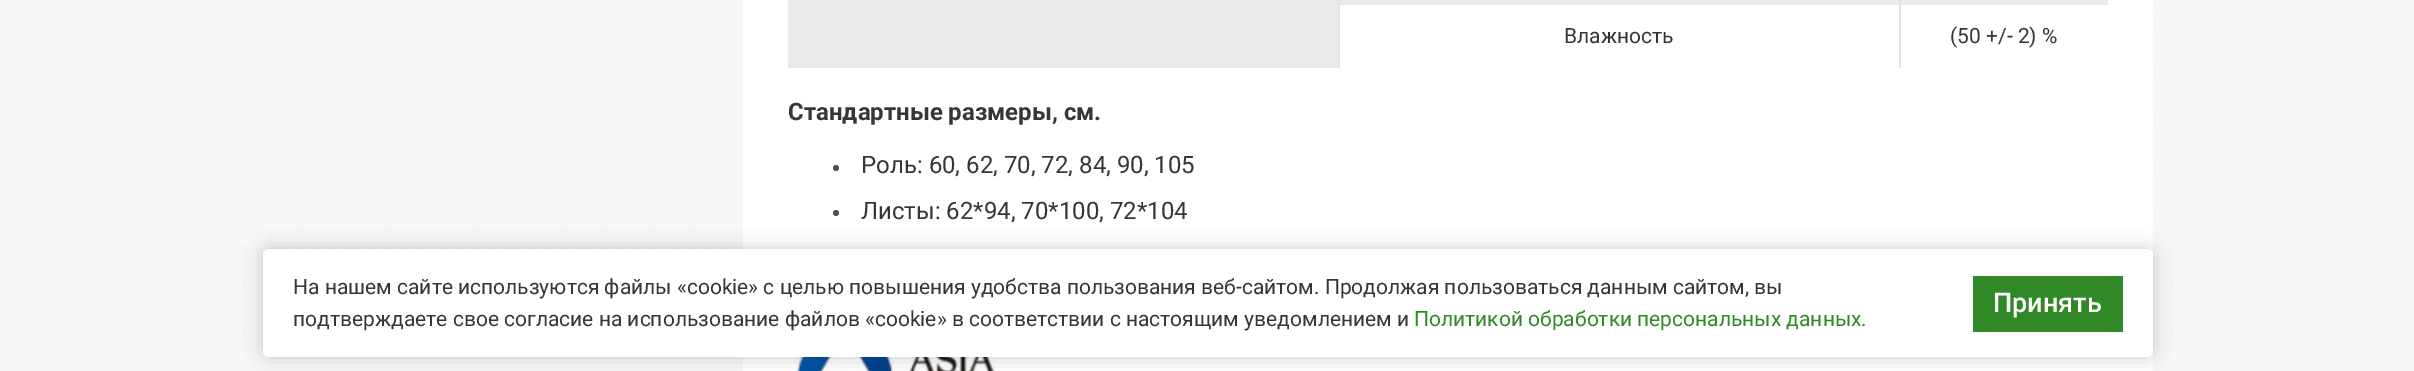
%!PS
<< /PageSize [2414 371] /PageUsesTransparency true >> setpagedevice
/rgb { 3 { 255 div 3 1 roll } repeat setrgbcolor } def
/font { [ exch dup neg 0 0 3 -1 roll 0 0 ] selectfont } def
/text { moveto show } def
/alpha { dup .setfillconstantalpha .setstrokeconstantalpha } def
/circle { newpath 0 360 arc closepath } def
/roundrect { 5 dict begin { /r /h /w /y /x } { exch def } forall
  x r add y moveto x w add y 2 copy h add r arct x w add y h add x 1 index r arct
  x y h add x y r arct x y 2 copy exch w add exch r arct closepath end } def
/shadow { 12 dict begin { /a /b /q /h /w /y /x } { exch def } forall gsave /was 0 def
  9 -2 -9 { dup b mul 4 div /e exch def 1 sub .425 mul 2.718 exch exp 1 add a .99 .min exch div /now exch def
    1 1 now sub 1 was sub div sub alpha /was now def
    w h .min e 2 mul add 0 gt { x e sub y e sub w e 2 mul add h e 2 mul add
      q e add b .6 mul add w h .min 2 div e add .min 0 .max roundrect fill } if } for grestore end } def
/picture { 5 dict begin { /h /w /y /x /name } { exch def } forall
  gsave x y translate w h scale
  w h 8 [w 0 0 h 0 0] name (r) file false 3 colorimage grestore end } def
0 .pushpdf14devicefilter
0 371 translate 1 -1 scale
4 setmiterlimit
247 247 247 rgb
0 0 2414 371 rectfill
(img_01.rgb) 12 8 2377 337 picture
255 255 255 rgb
743 0 1410 371 rectfill
234 234 234 rgb
788 0 550 68 rectfill
1338 0 770 5 rectfill
227 227 227 rgb
1338 0 2 68 rectfill
1899 0 2 68 rectfill
73 80 86 rgb
836 168 3 circle fill
836 213 3 circle fill
(img_02.rgb) 795 357 200 14 picture
0 0 0 rgb
263 249 1890 108 6 9 0.2 shadow
255 255 255 rgb
263 249 1890 108 6 roundrect fill
49 136 39 rgb
1973 276 150 56 rectfill
/Roboto-Regular 21 font
54 54 54 rgb
(Влажность) 1564 43 text
(\(50 +/- 2\) %) 1950 43 text
/Roboto-Bold 24 font
(Стандартные размеры, см.) 788 120 text
/Roboto-Regular 24 font
(Роль: 60, 62, 70, 72, 84, 90, 105) 861 173 text
(Листы: 62*94, 70*100, 72*104) 861 219 text
/Roboto-Regular 21 font
(На нашем сайте используются файлы «cookie» с целью повышения удобства пользования веб-сайтом. Продолжая пользоваться данным сайтом, вы) 293 294 text
(подтверждаете свое согласие на использование файлов «cookie» в соответствии с настоящим уведомлением и) 293 326 text
49 136 38 rgb
(Политикой обработки персональных данных.) 1414 326 text
/Roboto-Medium 27 font
255 255 255 rgb
(Принять) 1993 312 text
.poppdf14devicefilter showpage
